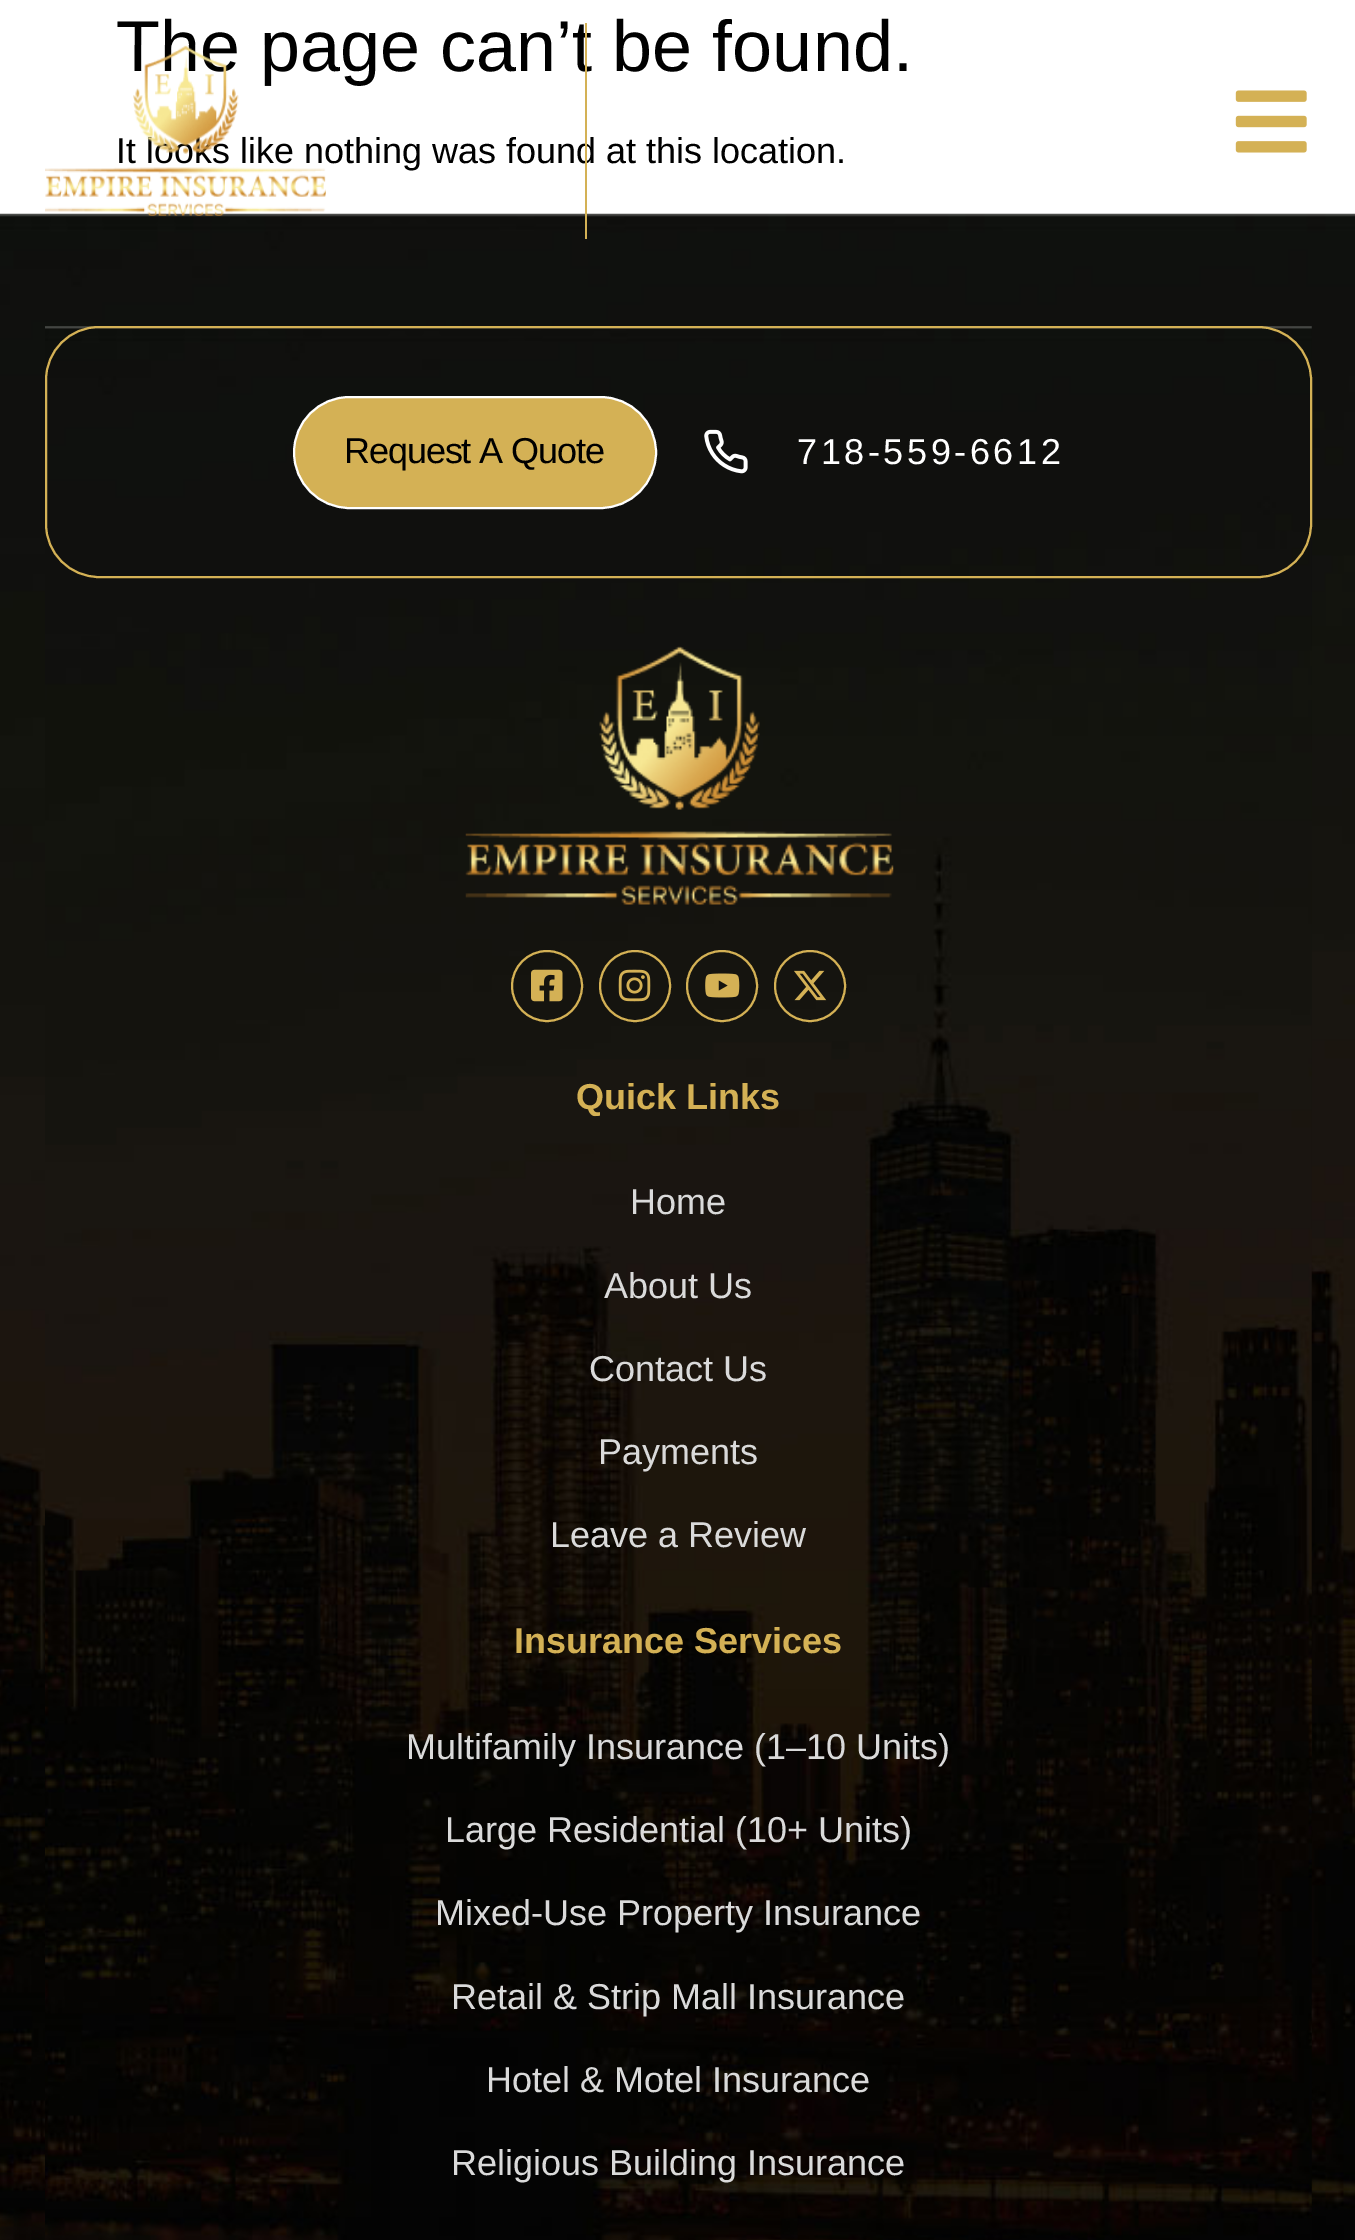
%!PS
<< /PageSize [1355 2240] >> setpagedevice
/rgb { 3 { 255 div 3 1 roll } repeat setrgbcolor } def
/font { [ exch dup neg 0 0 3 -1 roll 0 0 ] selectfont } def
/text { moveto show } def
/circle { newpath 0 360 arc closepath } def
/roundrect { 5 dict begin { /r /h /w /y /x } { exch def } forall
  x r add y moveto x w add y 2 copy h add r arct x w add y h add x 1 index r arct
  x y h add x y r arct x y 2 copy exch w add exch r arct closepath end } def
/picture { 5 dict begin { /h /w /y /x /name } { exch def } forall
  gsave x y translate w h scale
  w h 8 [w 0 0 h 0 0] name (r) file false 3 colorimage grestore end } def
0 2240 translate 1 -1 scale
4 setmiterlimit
255 255 255 rgb
0 0 1355 2240 rectfill
(img_02.rgb) 1235 90 72 63 picture
(img_03.rgb) 0 213 1355 2027 picture
(img_04.rgb) 45 326 1267 1914 picture
212 177 85 rgb
2 setlinewidth
46 327 1265 250 53 roundrect stroke
294 397 362 111 55.5 roundrect gsave fill grestore
255 255 255 rgb
stroke
(img_05.rgb) 704 429 44 45 picture
(img_06.rgb) 465 646 429 259 picture
212 177 85 rgb
547 986 35 circle stroke
(img_07.rgb) 531 969 32 33 picture
635 986 35 circle stroke
(img_08.rgb) 618 969 33 33 picture
722 986 35 circle stroke
(img_09.rgb) 705 973 35 25 picture
810 986 35 circle stroke
(img_10.rgb) 794 970 33 31 picture
/LiberationSans-Regular 72 font
0 0 0 rgb
(The page can’t be found.) 116 71 text
/LiberationSans-Regular 36 font
(It looks like nothing was found at this location.) 116 163 text
212 177 85 rgb
585 23 2 216 rectfill
(img_01.rgb) 45 45 281 171 picture
0 0 0 rgb
344 463 moveto -1.1 0 (Request A Quote) ashow
255 255 255 rgb
797 464 moveto 3.6 0 (718-559-6612) ashow
/LiberationSans-Bold 36 font
212 177 85 rgb
(Quick Links) 576 1109 text
/LiberationSans-Regular 36 font
218 218 218 rgb
(Home) 630 1214 text
(About Us) 604 1298 text
(Contact Us) 589 1381 text
(Payments) 598 1464 text
(Leave a Review) 550 1547 text
/LiberationSans-Bold 36 font
212 177 85 rgb
(Insurance Services) 514 1653 text
/LiberationSans-Regular 36 font
218 218 218 rgb
(Multifamily Insurance \(1–10 Units\)) 406 1759 text
(Large Residential \(10+ Units\)) 445 1842 text
(Mixed-Use Property Insurance) 435 1925 text
(Retail & Strip Mall Insurance) 451 2009 text
(Hotel & Motel Insurance) 486 2092 text
(Religious Building Insurance) 451 2175 text
showpage
